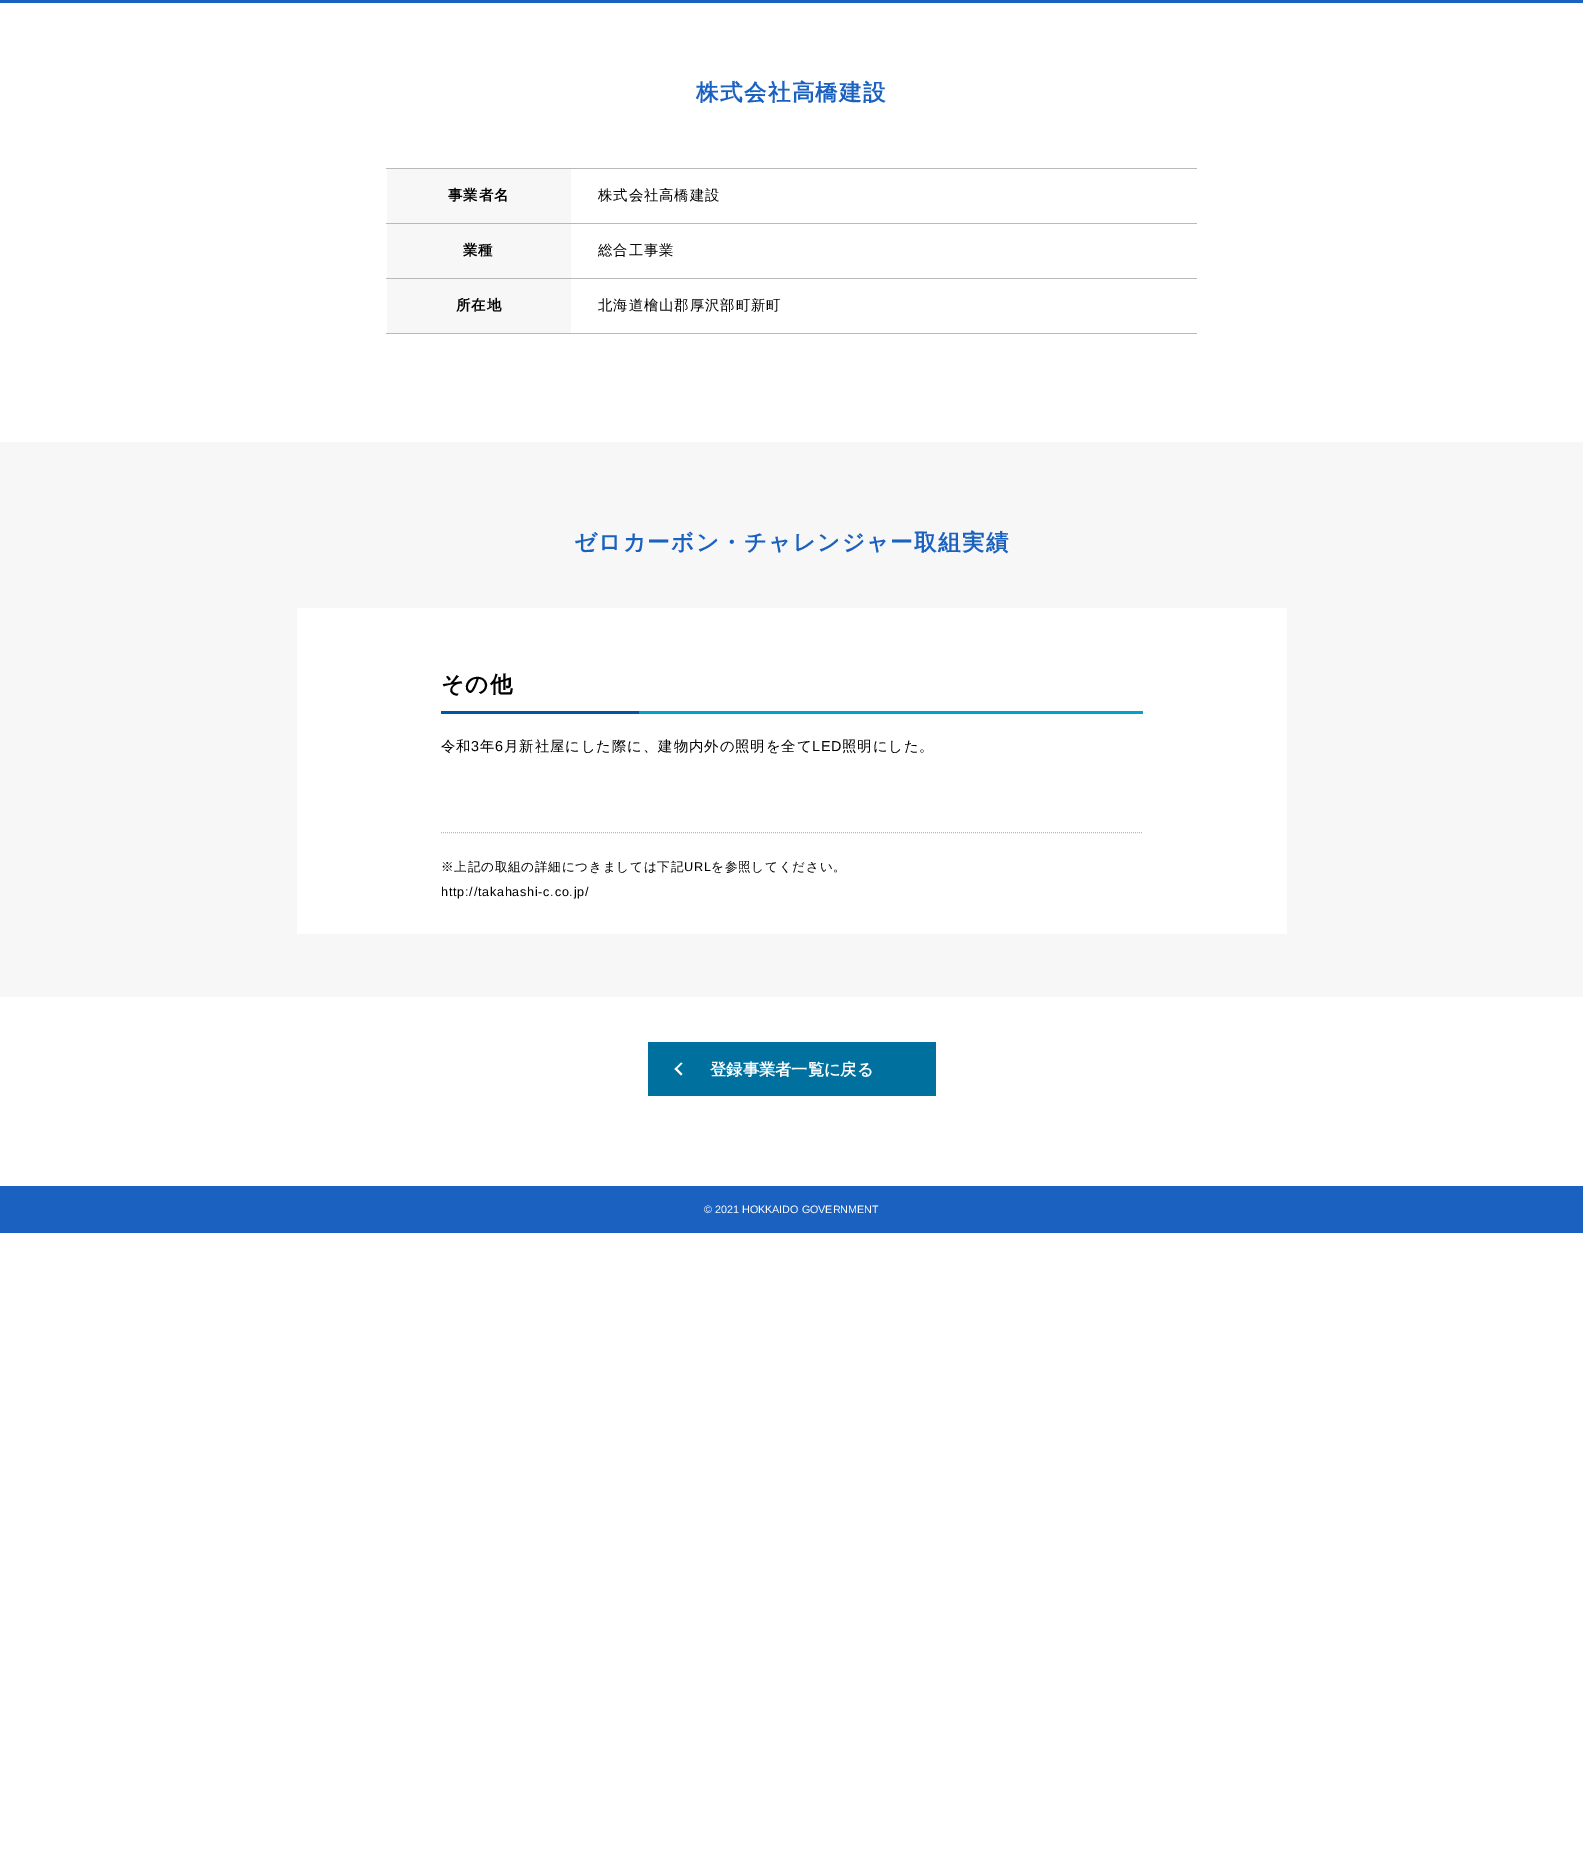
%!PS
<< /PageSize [1583 1850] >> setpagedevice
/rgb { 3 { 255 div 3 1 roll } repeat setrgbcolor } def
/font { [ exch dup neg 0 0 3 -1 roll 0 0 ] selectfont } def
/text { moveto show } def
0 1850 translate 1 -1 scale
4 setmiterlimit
255 255 255 rgb
0 0 1583 1850 rectfill
26 97 192 rgb
0 0 1583 3 rectfill
185 185 185 rgb
386 168 811 1 rectfill
386 223 811 1 rectfill
247 247 247 rgb
387 169 184 54 rectfill
185 185 185 rgb
386 278 811 1 rectfill
247 247 247 rgb
387 224 184 54 rectfill
185 185 185 rgb
386 333 811 1 rectfill
247 247 247 rgb
387 279 184 54 rectfill
0 442 1583 555 rectfill
255 255 255 rgb
297 608 990 326 rectfill
185 185 185 rgb
[1 1] 0 setdash
441 832.5 moveto 702 0 rlineto stroke
0 85 166 rgb
441 711 198 3 rectfill
0 162 197 rgb
639 711 504 3 rectfill
0 113 158 rgb
648 1042 288 54 rectfill
255 255 255 rgb
681 1075.5 moveto -6.5 -6.5 rlineto 1.5 -1.5 rlineto 6.5 6.5 rlineto closepath fill
676 1070 moveto -1.5 -1 rlineto 6.5 -6.5 rlineto 1.5 1 rlineto closepath fill
26 97 192 rgb
0 1186 1583 47 rectfill
/WenQuanYiZenHei-Bold 22.5 font
696 100 moveto 1.4 0 (株式会社高橋建設) ashow
/WenQuanYiZenHei-Bold 14.4 font
0 0 0 rgb
448 200 moveto 0.9 0 (事業者名) ashow
/WenQuanYiZenHei-Medium 14.4 font
598 200 moveto 0.9 0 (株式会社高橋建設) ashow
/WenQuanYiZenHei-Bold 14.4 font
463 255 moveto 0.9 0 (業種) ashow
/WenQuanYiZenHei-Medium 14.4 font
598 255 moveto 0.9 0 (総合工事業) ashow
/WenQuanYiZenHei-Bold 14.4 font
456 310 moveto 0.9 0 (所在地) ashow
/WenQuanYiZenHei-Medium 14.4 font
598 310 moveto 0.9 0 (北海道檜山郡厚沢部町新町) ashow
/WenQuanYiZenHei-Bold 22.5 font
26 97 192 rgb
574 550 moveto 1.4 0 (ゼロカーボン・チャレンジャー取組実績) ashow
0 0 0 rgb
441 692 moveto 1.4 0 (その他) ashow
/WenQuanYiZenHei-Medium 14.4 font
441 751 moveto 0.9 0 (令和) ashow
/LiberationSans-Regular 14.4 font
471 751 moveto 0.9 0 (3) ashow
/WenQuanYiZenHei-Medium 14.4 font
480 751 moveto 0.9 0 (年) ashow
/LiberationSans-Regular 14.4 font
495 751 moveto 0.9 0 (6) ashow
/WenQuanYiZenHei-Medium 14.4 font
504 751 moveto 0.9 0 (月新社屋にした際に、建物内外の照明を全て) ashow
/LiberationSans-Regular 14.4 font
812 751 moveto 0.9 0 (LED) ashow
/WenQuanYiZenHei-Medium 14.4 font
842 751 moveto 0.9 0 (照明にした。) ashow
/WenQuanYiZenHei-Medium 12.6 font
441 871 moveto 0.75 0 (※上記の取組の詳細につきましては下記) ashow
/LiberationSans-Regular 12.6 font
684 871 moveto 0.75 0 (URL) ashow
/WenQuanYiZenHei-Medium 12.6 font
711 871 moveto 0.75 0 (を参照してください。) ashow
/LiberationSans-Regular 12.6 font
441 896 moveto 0.75 0 (http://takahashi-c.co.jp/) ashow
/WenQuanYiZenHei-Bold 16.25 font
255 255 255 rgb
(登録事業者一覧に戻る) 710 1075 text
/LiberationSans-Regular 10.75 font
(© 2021 HOKKAIDO GOVERNMENT) 704 1213 text
showpage
